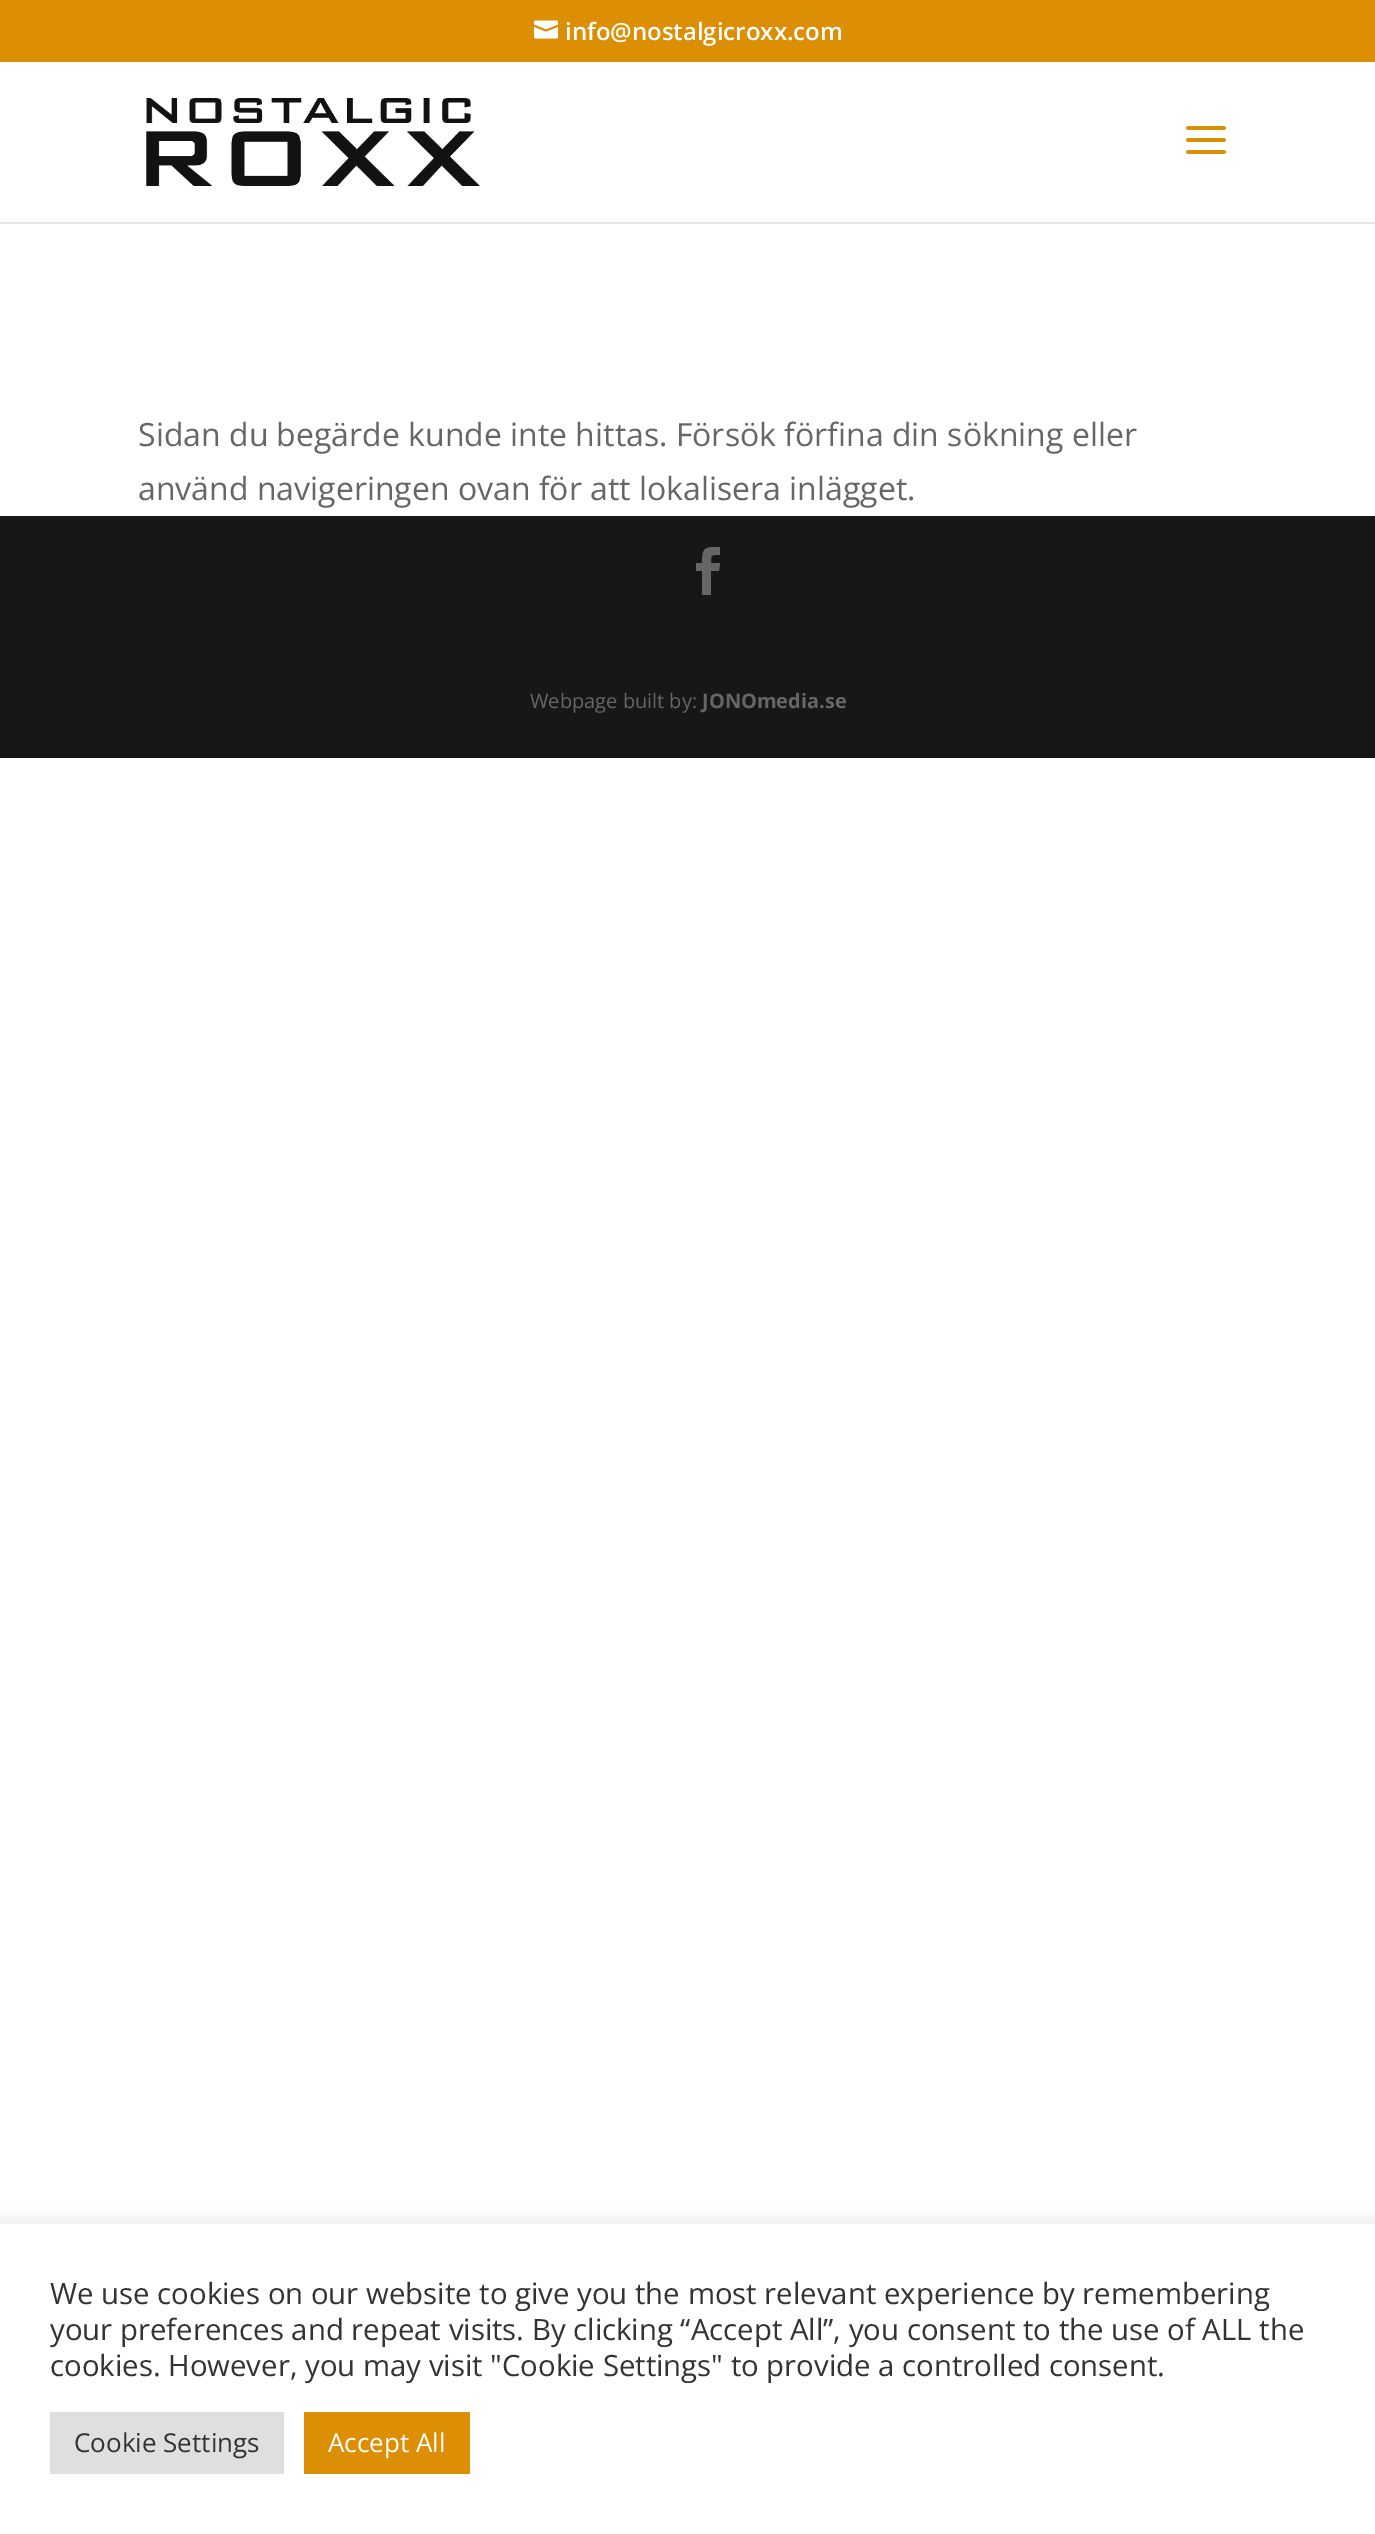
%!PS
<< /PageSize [1375 2534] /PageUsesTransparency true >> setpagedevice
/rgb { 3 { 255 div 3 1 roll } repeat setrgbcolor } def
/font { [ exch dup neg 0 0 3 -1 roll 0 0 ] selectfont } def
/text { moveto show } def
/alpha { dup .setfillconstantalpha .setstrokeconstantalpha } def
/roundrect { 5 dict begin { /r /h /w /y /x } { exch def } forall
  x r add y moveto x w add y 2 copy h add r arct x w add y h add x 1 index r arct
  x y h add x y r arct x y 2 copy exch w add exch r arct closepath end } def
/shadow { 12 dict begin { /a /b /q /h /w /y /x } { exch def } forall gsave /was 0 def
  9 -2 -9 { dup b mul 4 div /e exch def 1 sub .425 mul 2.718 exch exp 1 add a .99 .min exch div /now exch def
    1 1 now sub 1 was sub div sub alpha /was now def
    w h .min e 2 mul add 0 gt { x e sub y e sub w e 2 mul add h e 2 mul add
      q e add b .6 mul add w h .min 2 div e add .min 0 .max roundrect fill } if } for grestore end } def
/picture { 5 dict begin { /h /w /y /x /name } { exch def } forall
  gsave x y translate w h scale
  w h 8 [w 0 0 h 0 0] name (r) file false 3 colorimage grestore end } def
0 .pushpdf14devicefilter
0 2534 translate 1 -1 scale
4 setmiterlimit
255 255 255 rgb
0 0 1375 2534 rectfill
220 142 5 rgb
0 0 1375 62 rectfill
(img_01.rgb) 534 20 24 19 picture
230 230 230 rgb
0 222 1375 2 rectfill
(img_02.rgb) 146 98 334 88 picture
(img_03.rgb) 1186 126 40 28 picture
23 23 23 rgb
0 516 1375 242 rectfill
102 102 102 rgb
702 595 moveto 9 0 rlineto 0 -24 rlineto 8 0 rlineto 1 -8 rlineto -9 0 rlineto 0 -9 0 -8 9 -8 rcurveto 0 -8 rlineto -15 0 -18 0 -18 16 rcurveto -6 0 rlineto 0 8 rlineto 6 0 rlineto closepath fill
gsave
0 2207 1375 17 rectclip
172 171 171 rgb
0 2222 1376 310 0 10 0.3 shadow
grestore
222 223 224 rgb
50 2412 234 62 rectfill
220 142 5 rgb
304 2412 166 62 rectfill
/OpenSans-SemiBold 24 font
255 255 255 rgb
(info@nostalgicroxx.com) 565 40 text
/OpenSans-Regular 32 font
102 102 102 rgb
(Sidan du begärde kunde inte hittas. Försök förfina din sökning eller) 138 446 text
(använd navigeringen ovan för att lokalisera inlägget.) 138 500 text
/OpenSans-Regular 20 font
(Webpage built by:) 530 708 text
/OpenSans-Bold 20 font
(JONOmedia.se) 702 708 text
/OpenSans-Regular 29.35 font
51 51 51 rgb
(We use cookies on our website to give you the most relevant experience by remembering) 50 2304 text
(your preferences and repeat visits. By clicking “Accept All”, you consent to the use of ALL the) 50 2340 text
(cookies. However, you may visit "Cookie Settings" to provide a controlled consent.) 50 2376 text
/OpenSans-Regular 26 font
(Cookie Settings) 74 2452 text
255 255 255 rgb
(Accept All) 328 2452 text
.poppdf14devicefilter showpage
